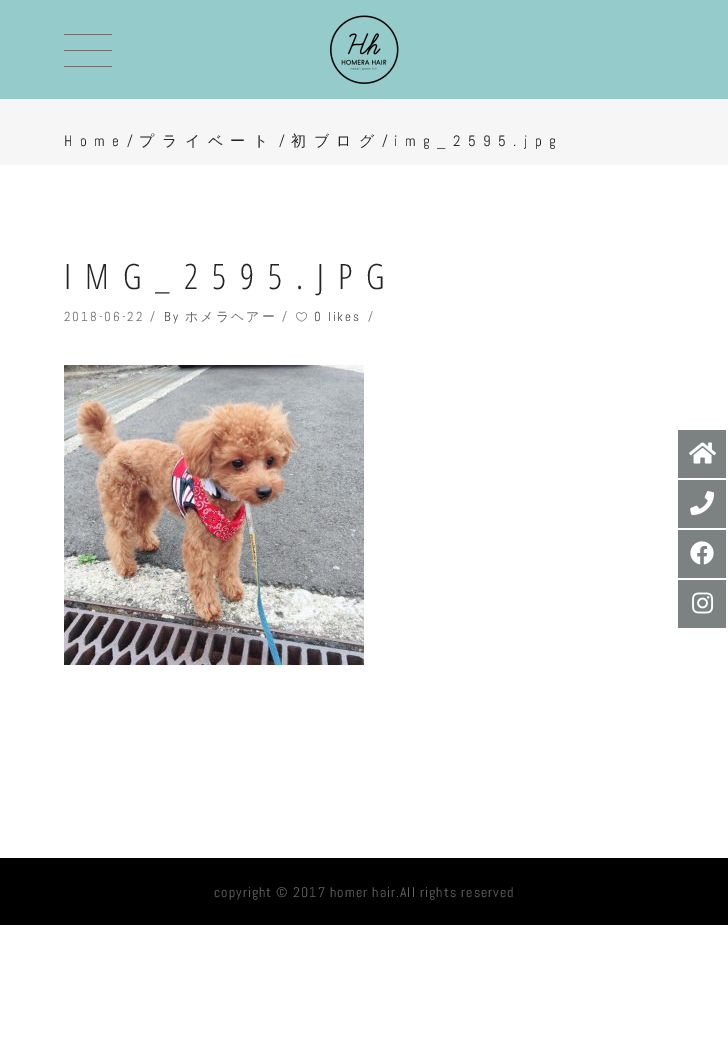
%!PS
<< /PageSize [728 1057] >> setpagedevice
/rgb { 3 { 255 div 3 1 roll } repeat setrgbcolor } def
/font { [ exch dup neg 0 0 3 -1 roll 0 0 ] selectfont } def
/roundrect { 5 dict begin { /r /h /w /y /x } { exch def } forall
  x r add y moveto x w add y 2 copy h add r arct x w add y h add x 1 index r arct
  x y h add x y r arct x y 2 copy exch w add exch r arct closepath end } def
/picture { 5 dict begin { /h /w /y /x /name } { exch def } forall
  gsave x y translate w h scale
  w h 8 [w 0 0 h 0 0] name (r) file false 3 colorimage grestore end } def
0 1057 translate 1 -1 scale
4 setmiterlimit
255 255 255 rgb
0 0 728 1057 rectfill
150 203 203 rgb
0 0 728 99 rectfill
108 108 108 rgb
64 34 48 1 0.5 roundrect fill
64 50 48 1 0.5 roundrect fill
64 66 48 1 0.5 roundrect fill
(img_01.rgb) 330 15 69 69 picture
246 246 246 rgb
0 100 728 65 rectfill
(img_02.rgb) 296 312 11 10 picture
(img_03.rgb) 64 365 300 300 picture
0 0 0 rgb
0 858 728 67 rectfill
124 130 130 rgb
678 430 48 48 rectfill
(img_04.rgb) 689 442 27 22 picture
678 480 48 48 rectfill
(img_05.rgb) 690 491 24 24 picture
678 530 48 48 rectfill
(img_06.rgb) 690 541 24 24 picture
678 580 48 48 rectfill
(img_07.rgb) 692 592 22 22 picture
/Abel-Regular 15 font
35 35 35 rgb
64 146 moveto 7.5 0 (Home/) ashow
/WenQuanYiZenHei-Medium 15 font
139 146 moveto 7.5 0 (プライベート) ashow
/Abel-Regular 15 font
279 146 moveto 7.5 0 (/) ashow
/WenQuanYiZenHei-Medium 15 font
291 146 moveto 7.5 0 (初ブログ) ashow
/Abel-Regular 15 font
382 146 moveto 7.5 0 (/) ashow
394 146 moveto 7.5 0 (img_2595.jpg) ashow
/OpenSansCondensed-Light 35 font
64 289 moveto 14 0 (IMG_2595.JPG) ashow
/Abel-Regular 13 font
108 108 108 rgb
64 321 moveto 2 0 (2018-06-22) ashow
150 321 moveto 2 0 (/) ashow
68 68 68 rgb
164 321 moveto 2 0 (By) ashow
/WenQuanYiZenHei-Medium 13 font
108 108 108 rgb
185 321 moveto 2 0 (ホメラヘアー) ashow
/Abel-Regular 13 font
282 321 moveto 2 0 (/) ashow
68 68 68 rgb
314 321 moveto 2 0 (0 likes) ashow
108 108 108 rgb
368 321 moveto 2 0 (/) ashow
/Abel-Regular 14 font
102 102 102 rgb
214 897 moveto 1 0 (copyright © 2017 homer hair.All rights reserved) ashow
showpage
